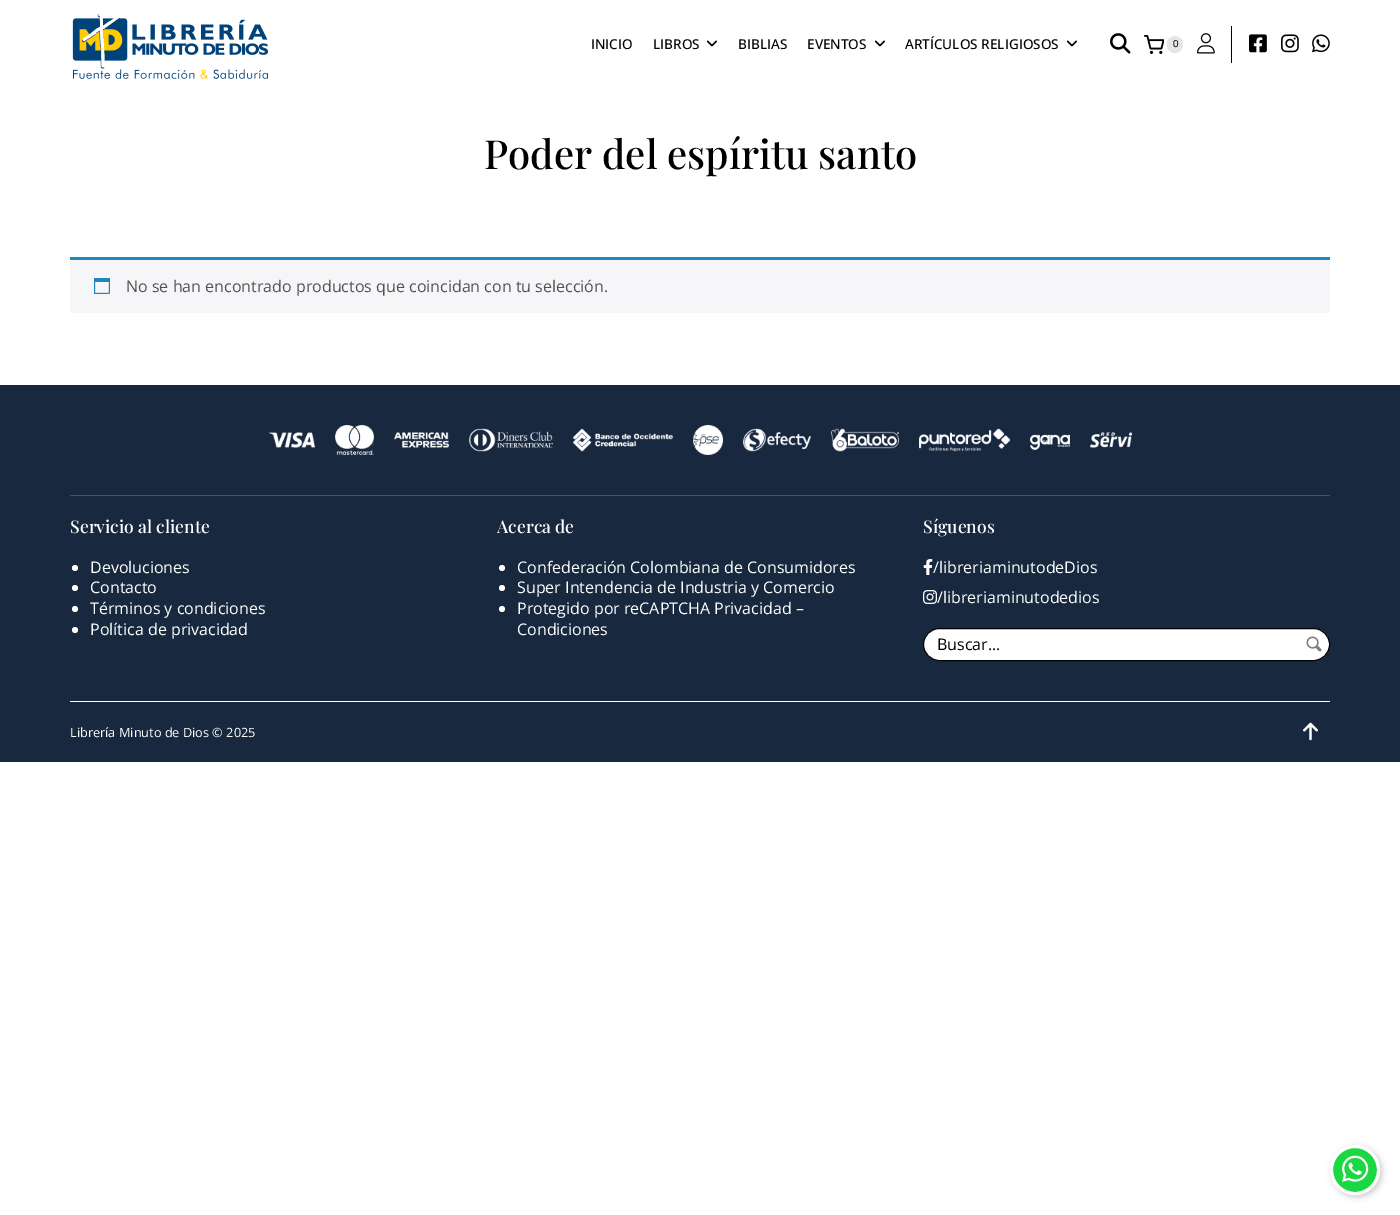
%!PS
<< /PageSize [1400 1215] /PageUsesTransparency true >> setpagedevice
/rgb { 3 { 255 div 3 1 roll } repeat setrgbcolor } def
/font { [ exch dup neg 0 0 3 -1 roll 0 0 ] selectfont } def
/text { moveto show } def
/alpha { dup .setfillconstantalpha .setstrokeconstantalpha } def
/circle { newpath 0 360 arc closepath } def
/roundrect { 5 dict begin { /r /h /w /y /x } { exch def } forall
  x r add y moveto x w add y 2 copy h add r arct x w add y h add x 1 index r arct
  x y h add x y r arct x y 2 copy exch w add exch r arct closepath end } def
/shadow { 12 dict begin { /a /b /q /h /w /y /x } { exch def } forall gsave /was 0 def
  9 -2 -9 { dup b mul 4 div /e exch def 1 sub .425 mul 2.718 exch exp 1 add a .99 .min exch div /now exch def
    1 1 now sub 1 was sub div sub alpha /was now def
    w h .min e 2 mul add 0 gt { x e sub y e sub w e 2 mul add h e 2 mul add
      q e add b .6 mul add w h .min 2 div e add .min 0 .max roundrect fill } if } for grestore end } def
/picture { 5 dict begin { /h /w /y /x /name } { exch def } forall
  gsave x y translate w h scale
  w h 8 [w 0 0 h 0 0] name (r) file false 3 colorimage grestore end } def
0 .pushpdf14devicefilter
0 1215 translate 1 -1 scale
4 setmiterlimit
255 255 255 rgb
0 0 1400 1215 rectfill
(img_01.rgb) 72 13 196 66 picture
(img_02.rgb) 706 40 11 7 picture
(img_02.rgb) 874 40 11 7 picture
(img_02.rgb) 1066 40 11 7 picture
(img_03.rgb) 1110 33 21 21 picture
(img_04.rgb) 1144 35 20 19 picture
230 230 230 rgb
1167 36 16 17 8 roundrect fill
(img_05.rgb) 1197 33 18 21 picture
0 0 0 rgb
1231 26 1 37 rectfill
(img_06.rgb) 1249 34 18 19 picture
(img_07.rgb) 1281 34 18 19 picture
(img_08.rgb) 1312 34 18 19 picture
246 245 248 rgb
70 260 1260 53 rectfill
30 133 190 rgb
70 257 1260 3 rectfill
(img_09.rgb) 94 278 16 16 picture
24 40 63 rgb
0 385 1400 377 rectfill
(img_10.rgb) 269 432 46 16 picture
(img_11.rgb) 335 425 39 30 picture
(img_12.rgb) 394 432 55 16 picture
(img_13.rgb) 469 428 84 24 picture
(img_14.rgb) 573 428 100 24 picture
(img_15.rgb) 693 425 30 30 picture
(img_16.rgb) 743 428 68 24 picture
(img_17.rgb) 831 428 68 24 picture
(img_18.rgb) 919 428 91 24 picture
(img_19.rgb) 1030 434 40 16 picture
(img_20.rgb) 1090 432 42 16 picture
70 83 101 rgb
70 495 1260 1 rectfill
255 255 255 rgb
75 568 3 circle fill
75 588 3 circle fill
75 609 3 circle fill
75 630 3 circle fill
502 568 3 circle fill
502 588 3 circle fill
502 609 3 circle fill
(img_21.rgb) 923 559 10 16 picture
(img_22.rgb) 923 590 14 14 picture
923.5 628.5 406 32 16 roundrect gsave fill grestore
0 0 0 rgb
stroke
(img_23.rgb) 1306 636 16 16 picture
255 255 255 rgb
70 701 1260 1 rectfill
(img_24.rgb) 1303 722 15 19 picture
0 0 0 rgb
1332 1147 50 50 25 3 0.2 shadow
27 215 65 rgb
1355 1170 23.5 circle gsave fill grestore
255 255 255 rgb
3 setlinewidth
stroke
(img_25.rgb) 1342 1155 27 27 picture
/OpenSans-Medium 13.6 font
0 0 0 rgb
(INICIO) 591 49 text
(LIBROS) 653 49 text
(BIBLIAS) 738 49 text
(EVENTOS) 807 49 text
(ARTÍCULOS RELIGIOSOS) 905 49 text
/LiberationSans-Regular 10 font
(0) 1173 47 text
/PlayfairDisplay-Medium 40 font
(Poder del espíritu santo) 484 169 text
/OpenSans-Regular 16 font
81 81 81 rgb
(No se han encontrado productos que coincidan con tu selección.) 126 292 text
/PlayfairDisplay-Medium 17.5 font
255 255 255 rgb
(Servicio al cliente) 70 533 text
/OpenSans-Regular 16 font
(Devoluciones) 90 573 text
(Contacto) 90 593 text
(Términos y condiciones) 90 614 text
(Política de privacidad) 90 635 text
/PlayfairDisplay-Medium 17.5 font
(Acerca de) 497 533 text
/OpenSans-Regular 16 font
(Confederación Colombiana de Consumidores) 517 573 text
(Super Intendencia de Industria y Comercio) 517 593 text
(Protegido por reCAPTCHA Privacidad –) 517 614 text
(Condiciones) 517 635 text
/PlayfairDisplay-Medium 17.5 font
(Síguenos) 923 533 text
/OpenSans-Regular 16 font
(/libreriaminutodeDios) 933 573 text
(/libreriaminutodedios) 937 603 text
0 0 0 rgb
(Buscar...) 937 650 text
/OpenSans-Regular 12.75 font
255 255 255 rgb
(Librería Minuto de Dios © 2025) 70 737 text
.poppdf14devicefilter showpage
